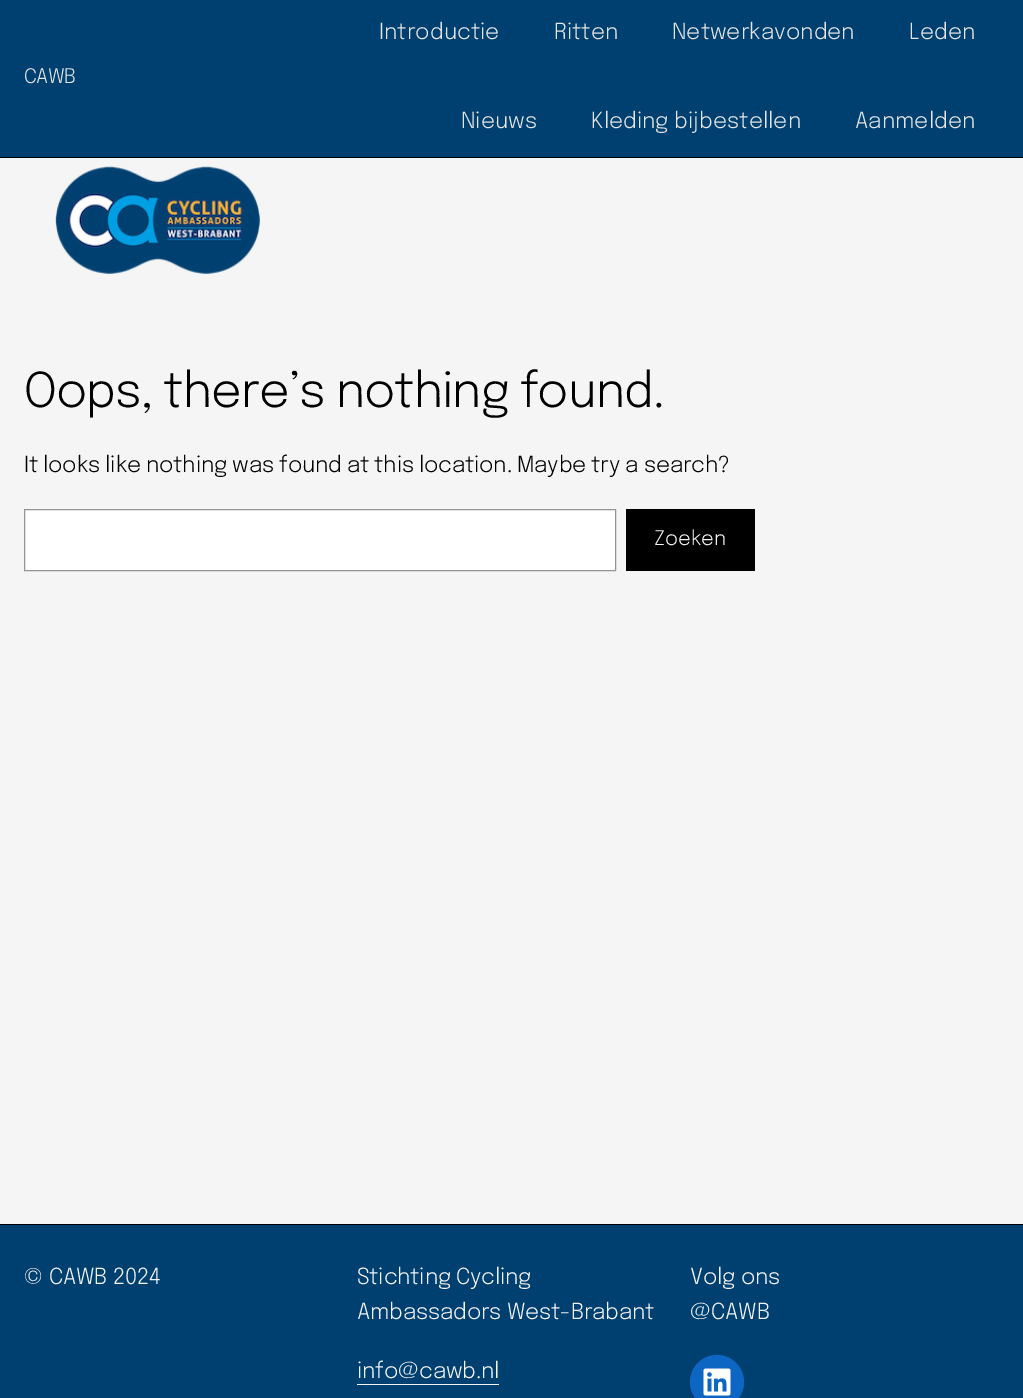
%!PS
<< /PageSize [1023 1398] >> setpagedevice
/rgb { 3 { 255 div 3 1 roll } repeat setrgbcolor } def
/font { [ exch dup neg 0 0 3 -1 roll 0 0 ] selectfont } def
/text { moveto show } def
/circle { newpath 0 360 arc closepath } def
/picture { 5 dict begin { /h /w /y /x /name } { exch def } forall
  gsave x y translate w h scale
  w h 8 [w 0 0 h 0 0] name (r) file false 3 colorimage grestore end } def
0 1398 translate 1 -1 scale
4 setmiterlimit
245 245 245 rgb
0 0 1023 1398 rectfill
0 0 0 rgb
0 157 1023 1 rectfill
0 64 112 rgb
0 0 1023 157 rectfill
(img_01.rgb) 55 166 205 108 picture
255 255 255 rgb
24.5 509.5 moveto 591 0 rlineto 0 61 rlineto -591 0 rlineto closepath gsave fill grestore
148 148 148 rgb
stroke
0 0 0 rgb
626 509 129 62 rectfill
0 1224 1023 1 rectfill
0 64 112 rgb
0 1225 1023 173 rectfill
245 245 245 rgb
357 1384 142 1 rectfill
13 102 194 rgb
717 1382 27 circle fill
(img_02.rgb) 703 1368 28 28 picture
/Epilogue-Light 20 font
230 230 230 rgb
24 83 moveto -0.5 0 (CAWB) ashow
/Epilogue-Light 22.1 font
(Introductie) 379 39 text
(Ritten) 554 39 text
(Netwerkavonden) 672 39 text
(Leden) 909 39 text
(Nieuws) 461 128 text
(Kleding bijbestellen) 591 128 text
(Aanmelden) 855 128 text
/Epilogue-Light 48 font
0 0 0 rgb
24 407 moveto -0.95 0 (Oops, there’s nothing found.) ashow
/Epilogue-Light 22.1 font
24 472 moveto -0.22 0 (It looks like nothing was found at this location. Maybe try a search?) ashow
/Epilogue-Light 20 font
245 245 245 rgb
(Zoeken) 654 545 text
/Epilogue-Light 22.1 font
24 1284 moveto -0.22 0 (© CAWB 2024) ashow
357 1284 moveto -0.22 0 (Stichting Cycling) ashow
357 1319 moveto -0.22 0 (Ambassadors West-Brabant) ashow
357 1378 moveto -0.22 0 (info@cawb.nl) ashow
690 1284 moveto -0.22 0 (Volg ons) ashow
690 1319 moveto -0.22 0 (@CAWB) ashow
showpage
